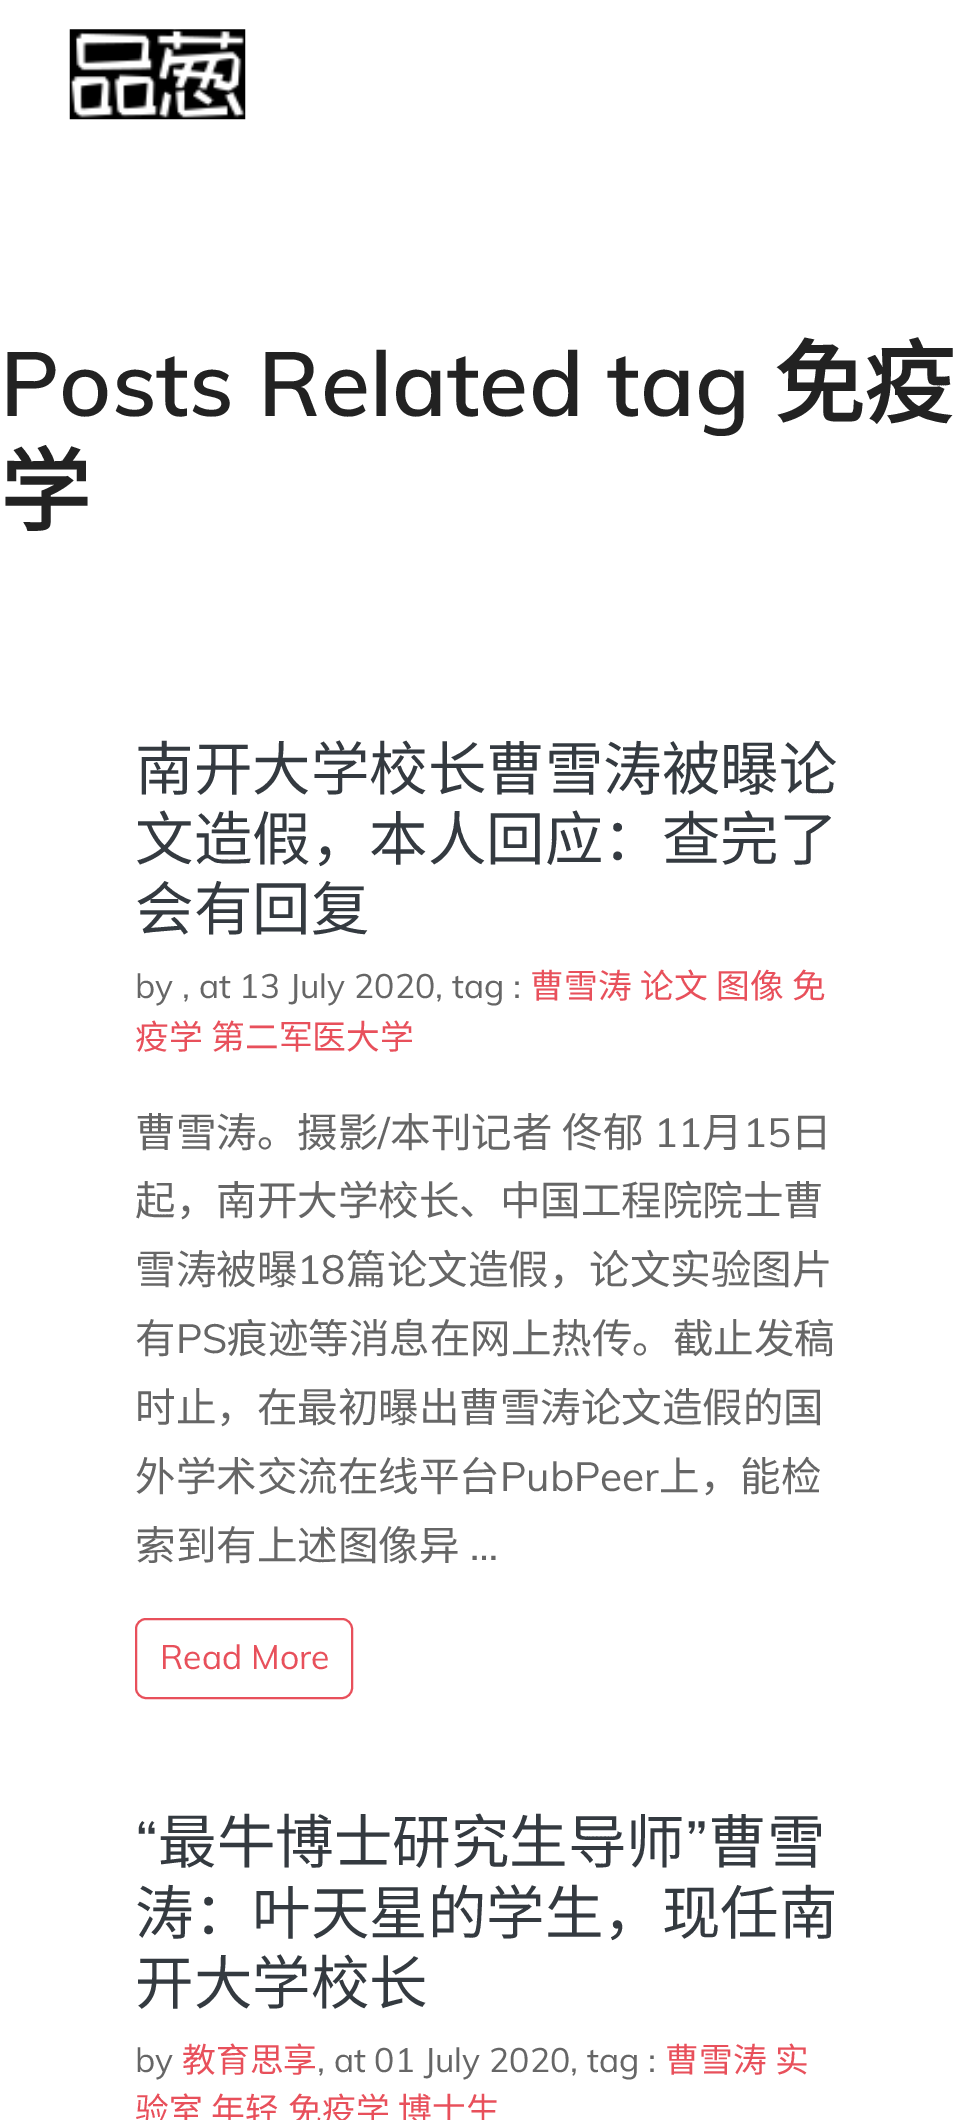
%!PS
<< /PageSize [973 2120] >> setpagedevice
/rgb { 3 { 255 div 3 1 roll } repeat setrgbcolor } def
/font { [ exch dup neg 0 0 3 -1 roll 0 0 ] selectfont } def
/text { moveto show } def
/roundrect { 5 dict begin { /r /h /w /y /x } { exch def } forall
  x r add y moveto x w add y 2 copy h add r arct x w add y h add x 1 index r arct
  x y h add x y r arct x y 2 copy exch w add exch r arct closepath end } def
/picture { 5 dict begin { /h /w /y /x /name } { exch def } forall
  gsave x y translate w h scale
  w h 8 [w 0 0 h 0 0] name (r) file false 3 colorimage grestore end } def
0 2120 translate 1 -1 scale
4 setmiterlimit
255 255 255 rgb
0 0 973 2120 rectfill
(img_01.rgb) 69 29 177 91 picture
232 80 91 rgb
2 setlinewidth
136 1619 216 79 10 roundrect stroke
/Muli-SemiBold 90 font
34 34 34 rgb
(Posts Related tag) 0 416 text
/NotoSansCJKSC-Bold 90 font
(免疫) 774 416 text
(学) 0 524 text
/NotoSansCJKSC-Regular 58.5 font
52 58 64 rgb
(南开大学校长曹雪涛被曝论) 135 790 text
(文造假，本人回应：查完了) 135 860 text
(会有回复) 135 930 text
/Muli-Regular 33.75 font
102 102 102 rgb
(by , at 13 July 2020, tag :) 135 998 text
/NotoSansCJKSC-Regular 33.75 font
232 80 91 rgb
(曹雪涛) 530 998 text
(论文) 640 998 text
(图像) 716 998 text
(免) 792 998 text
(疫学) 135 1049 text
(第二军医大学) 211 1049 text
/NotoSansCJKSC-Regular 40.5 font
102 102 102 rgb
(曹雪涛。摄影) 135 1147 text
/Muli-Regular 40.5 font
(/) 378 1147 text
/NotoSansCJKSC-Regular 40.5 font
390 1147 moveto 1 0 32 (本刊记者 佟郁) widthshow
/Muli-Regular 40.5 font
(11) 654 1147 text
/NotoSansCJKSC-Regular 40.5 font
(月) 702 1147 text
/Muli-Regular 40.5 font
(15) 743 1147 text
/NotoSansCJKSC-Regular 40.5 font
(日) 791 1147 text
(起，南开大学校长、中国工程院院士曹) 135 1215 text
(雪涛被曝) 135 1284 text
/Muli-Regular 40.5 font
(18) 297 1284 text
/NotoSansCJKSC-Regular 40.5 font
(篇论文造假，论文实验图片) 346 1284 text
(有) 135 1353 text
/Muli-Regular 40.5 font
(PS) 176 1353 text
/NotoSansCJKSC-Regular 40.5 font
(痕迹等消息在网上热传。截止发稿) 227 1353 text
(时止，在最初曝出曹雪涛论文造假的国) 135 1422 text
(外学术交流在线平台) 135 1491 text
/Muli-Regular 40.5 font
(PubPeer) 500 1491 text
/NotoSansCJKSC-Regular 40.5 font
(上，能检) 659 1491 text
(索到有上述图像异) 135 1560 text
/Muli-Regular 40.5 font
(…) 470 1560 text
/Muli-Regular 33.75 font
232 80 91 rgb
(Read More) 160 1669 text
/Muli-Regular 58.5 font
52 58 64 rgb
(“) 135 1863 text
/NotoSansCJKSC-Regular 58.5 font
(最牛博士研究生导师) 158 1863 text
/Muli-Regular 58.5 font
(”) 685 1863 text
/NotoSansCJKSC-Regular 58.5 font
(曹雪) 708 1863 text
(涛：叶天星的学生，现任南) 135 1934 text
(开大学校长) 135 2004 text
/Muli-Regular 33.75 font
102 102 102 rgb
(by) 135 2072 text
/NotoSansCJKSC-Regular 33.75 font
232 80 91 rgb
(教育思享) 182 2072 text
/Muli-Regular 33.75 font
102 102 102 rgb
(, at 01 July 2020, tag :) 317 2072 text
/NotoSansCJKSC-Regular 33.75 font
232 80 91 rgb
(曹雪涛) 665 2072 text
(实) 775 2072 text
(验室) 135 2122 text
(年轻) 211 2122 text
(免疫学) 288 2122 text
(博士生) 398 2122 text
showpage
